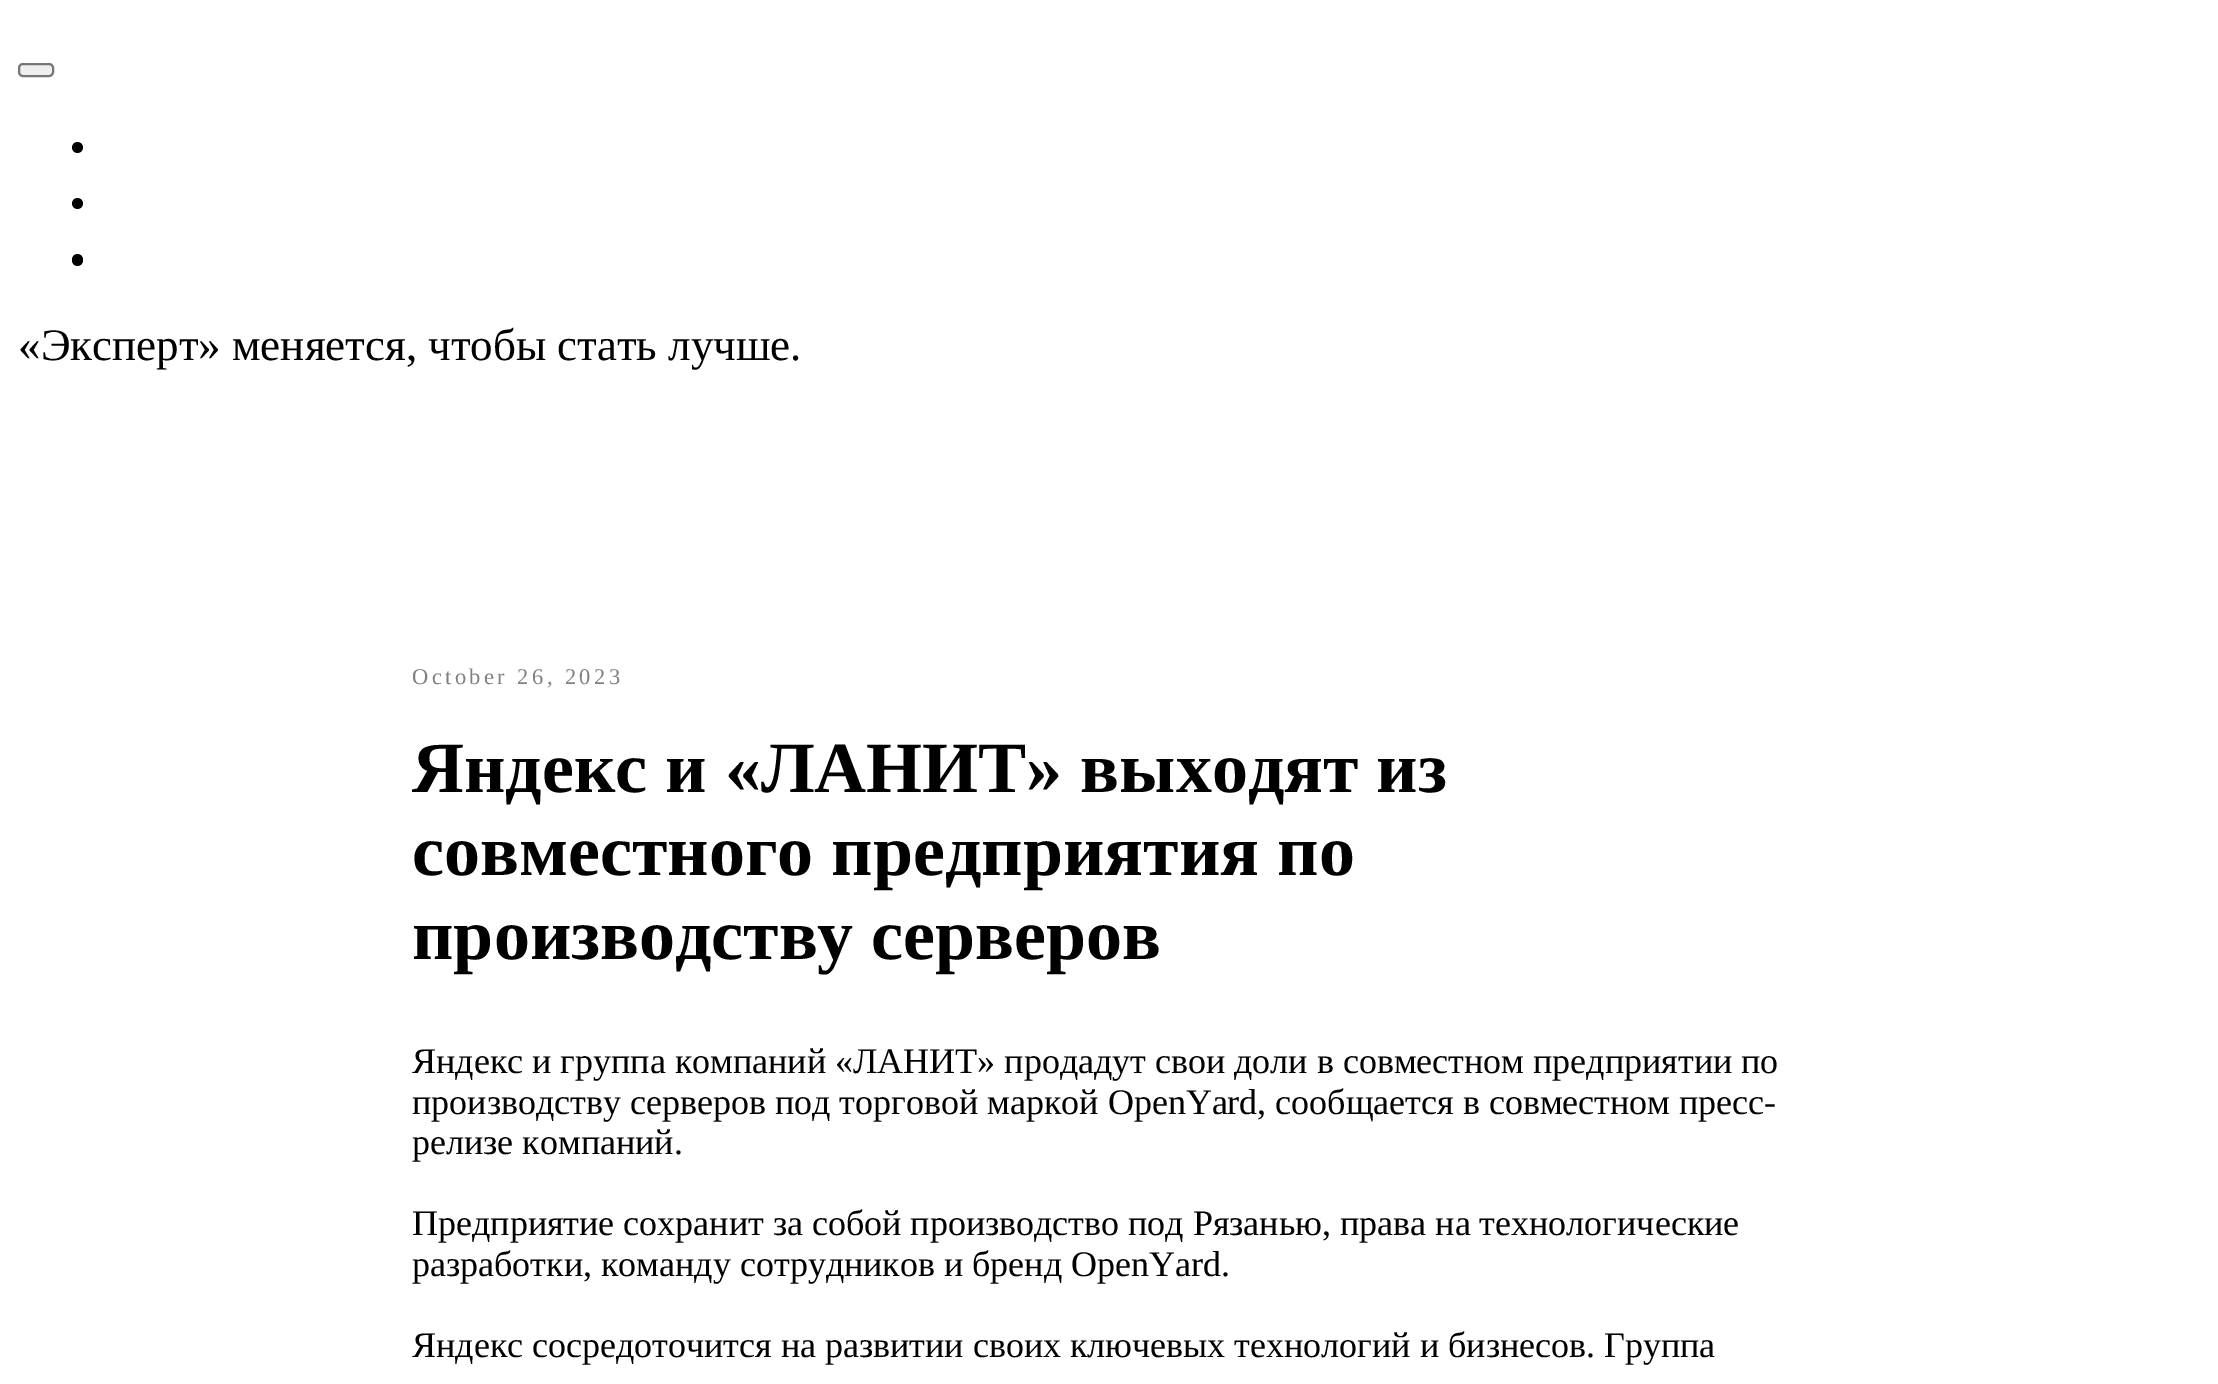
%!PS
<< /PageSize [2218 1384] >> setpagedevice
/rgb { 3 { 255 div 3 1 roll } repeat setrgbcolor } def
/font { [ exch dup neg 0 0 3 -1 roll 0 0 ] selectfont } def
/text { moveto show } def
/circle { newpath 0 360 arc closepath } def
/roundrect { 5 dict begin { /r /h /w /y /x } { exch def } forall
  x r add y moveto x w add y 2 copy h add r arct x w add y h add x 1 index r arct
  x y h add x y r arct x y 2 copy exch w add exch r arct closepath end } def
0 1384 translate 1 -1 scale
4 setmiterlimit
255 255 255 rgb
0 0 2218 1384 rectfill
239 239 239 rgb
19 64 34 12 4 roundrect gsave fill grestore
118 118 118 rgb
2 setlinewidth
stroke
0 0 0 rgb
77.5 147.5 5.5 circle fill
77.5 203.5 5.5 circle fill
72 254 11 12 5.5 roundrect fill
/LiberationSerif-Regular 45 font
(«Эксперт» меняется, чтобы стать лучше.) 18 360 text
/LiberationSerif-Regular 22.5 font
128 128 128 rgb
412 684 moveto 3.4 0 (October 26, 2023) ashow
/LiberationSerif-Bold 72 font
0 0 0 rgb
(Яндекс и «ЛАНИТ» выходят из) 412 792 text
(совместного предприятия по) 412 875 text
(производству серверов) 412 959 text
/LiberationSerif-Regular 36 font
(Яндекс и группа компаний «ЛАНИТ» продадут свои доли в совместном предприятии по) 412 1073 text
(производству серверов под торговой маркой OpenYard, сообщается в совместном пресс-) 412 1114 text
(релизе компаний.) 412 1154 text
(Предприятие сохранит за собой производство под Рязанью, права на технологические) 412 1235 text
(разработки, команду сотрудников и бренд OpenYard.) 412 1276 text
(Яндекс сосредоточится на развитии своих ключевых технологий и бизнесов. Группа) 412 1357 text
showpage
